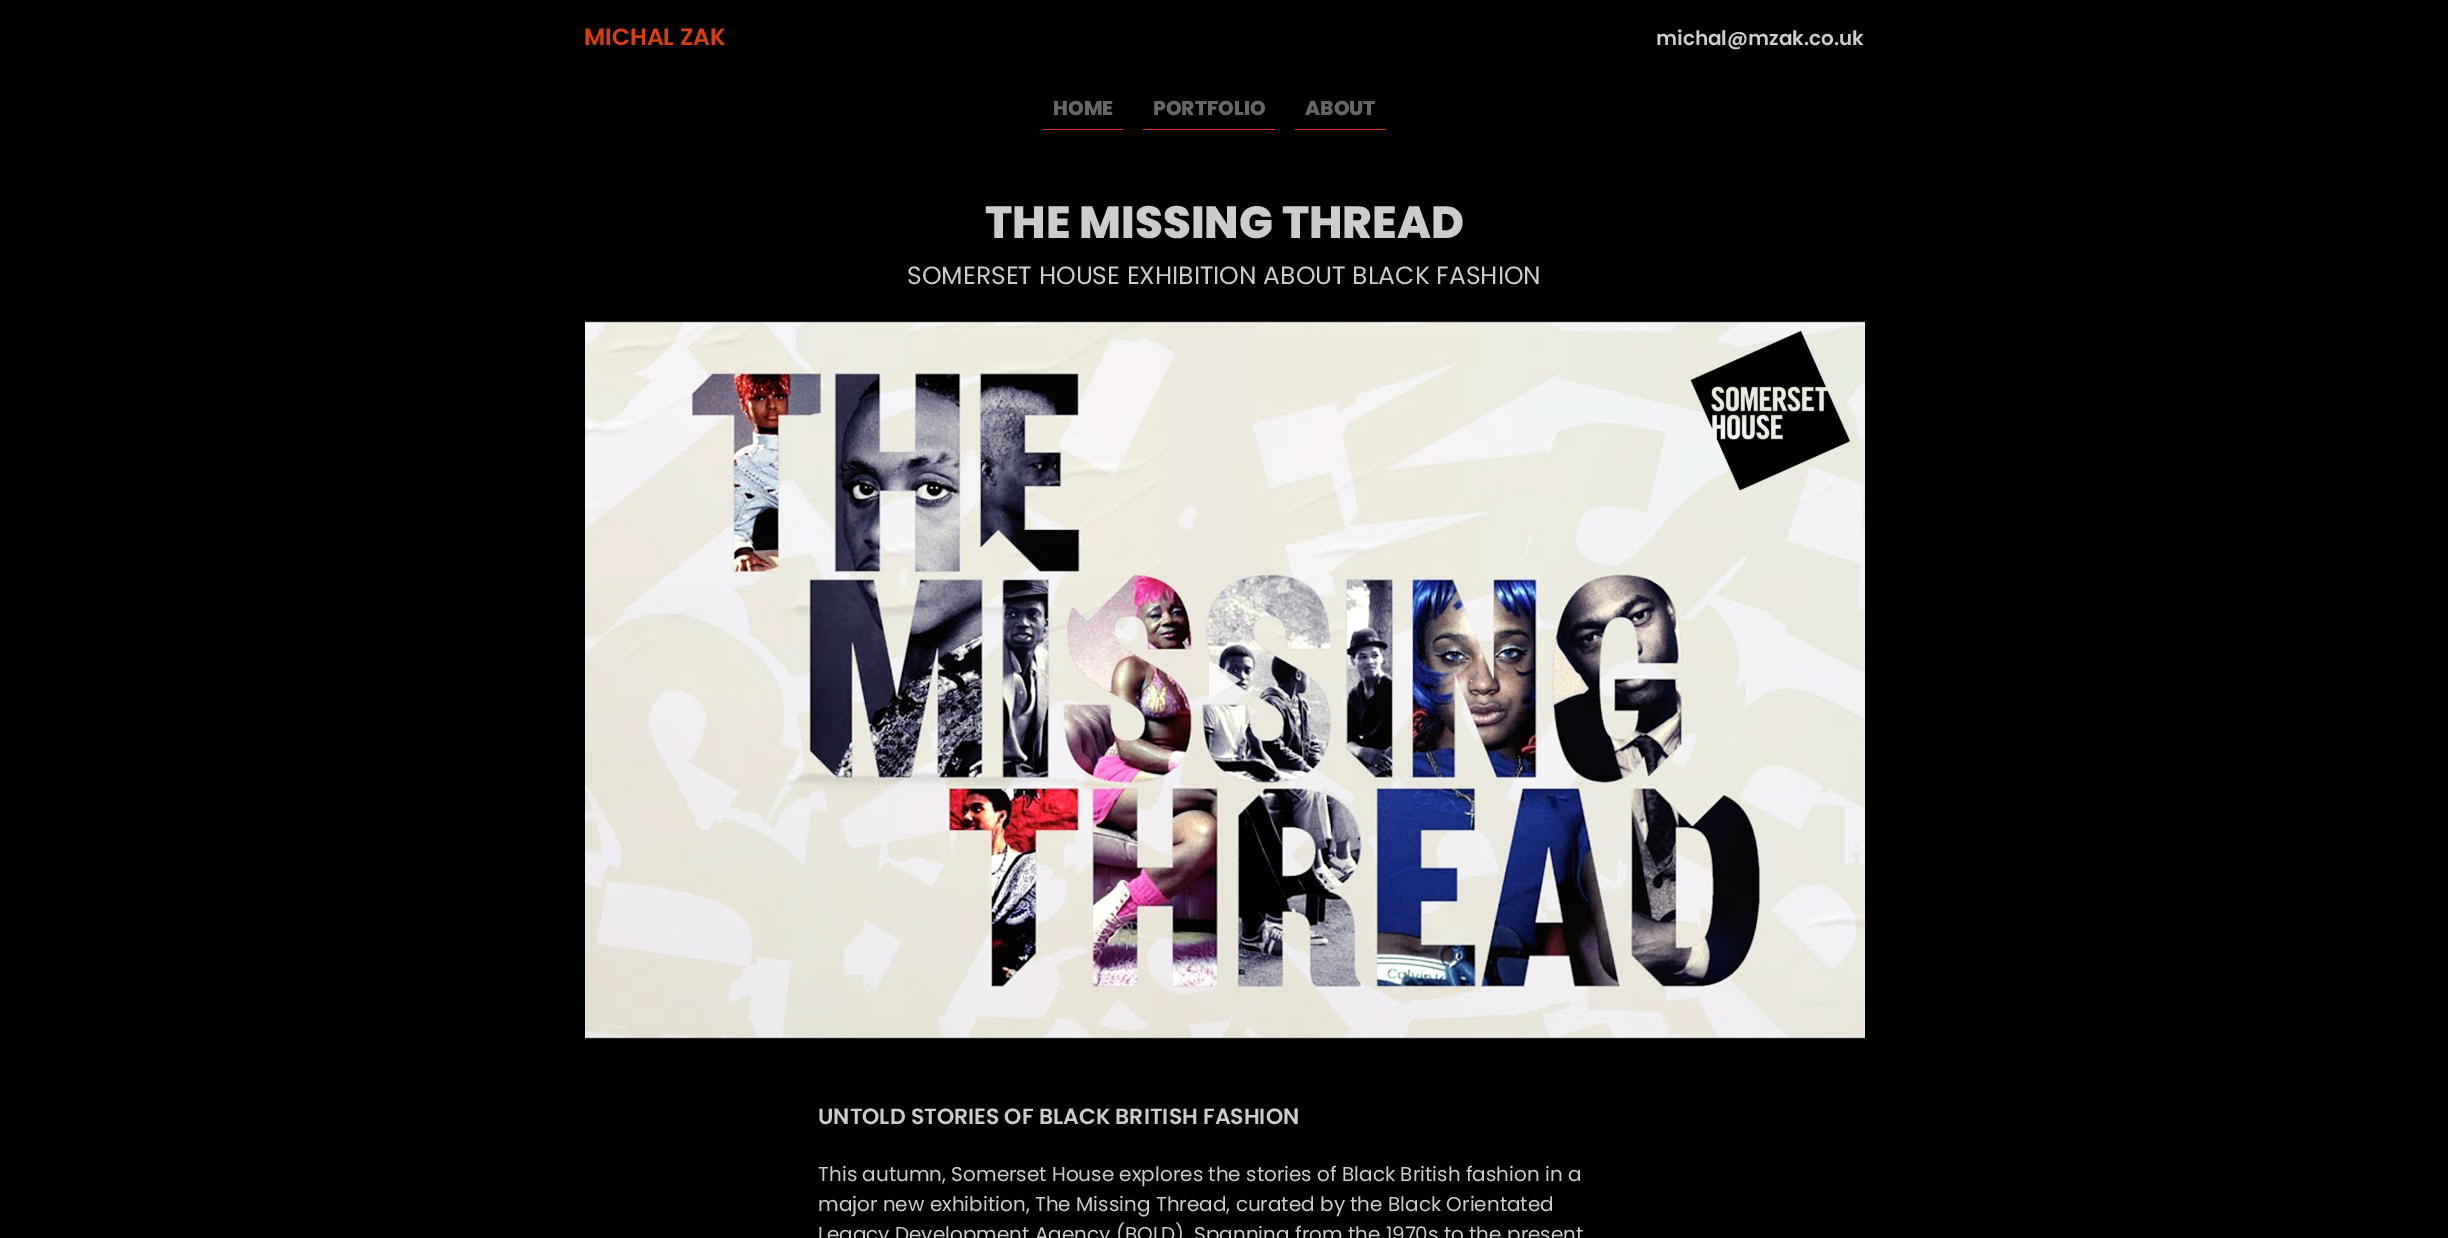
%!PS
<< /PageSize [2448 1238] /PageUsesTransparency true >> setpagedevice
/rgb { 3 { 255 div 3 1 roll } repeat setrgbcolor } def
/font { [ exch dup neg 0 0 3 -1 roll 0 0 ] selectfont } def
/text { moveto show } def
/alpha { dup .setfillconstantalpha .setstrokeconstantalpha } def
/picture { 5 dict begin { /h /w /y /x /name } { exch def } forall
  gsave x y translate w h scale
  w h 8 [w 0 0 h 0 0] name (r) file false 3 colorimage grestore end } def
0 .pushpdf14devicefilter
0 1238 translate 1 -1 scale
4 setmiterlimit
0 0 0 rgb
0 0 2448 1238 rectfill
216 62 16 rgb
1043 129 80 1 rectfill
1143 129 132 1 rectfill
1295 129 91 1 rectfill
(img_01.rgb) 585 320 1280 719 picture
0.8 alpha
255 255 255 rgb
1209 699 moveto 0 -38 rlineto 32 19 rlineto closepath fill
/Poppins-SemiBold 23.5 font
1 alpha
216 62 16 rgb
(MICHAL ZAK) 584 45 text
/Poppins-SemiBold 20 font
204 204 204 rgb
(michal@mzak.co.uk) 1656 45 text
/Poppins-ExtraBold 20 font
102 102 102 rgb
(HOME) 1053 115 text
(PORTFOLIO) 1153 115 text
(ABOUT) 1305 115 text
/Poppins-ExtraBold 45 font
204 204 204 rgb
(THE MISSING THREAD) 985 238 text
/Poppins-Regular 25 font
(SOMERSET HOUSE EXHIBITION ABOUT BLACK FASHION) 907 284 text
/Poppins-SemiBold 22 font
(UNTOLD STORIES OF BLACK BRITISH FASHION) 818 1124 text
/Poppins-Regular 20 font
(This autumn, Somerset House explores the stories of Black British fashion in a) 818 1181 text
(major new exhibition, The Missing Thread, curated by the Black Orientated) 818 1211 text
(Legacy Development Agency \(BOLD\). Spanning from the 1970s to the present) 818 1241 text
.poppdf14devicefilter showpage
